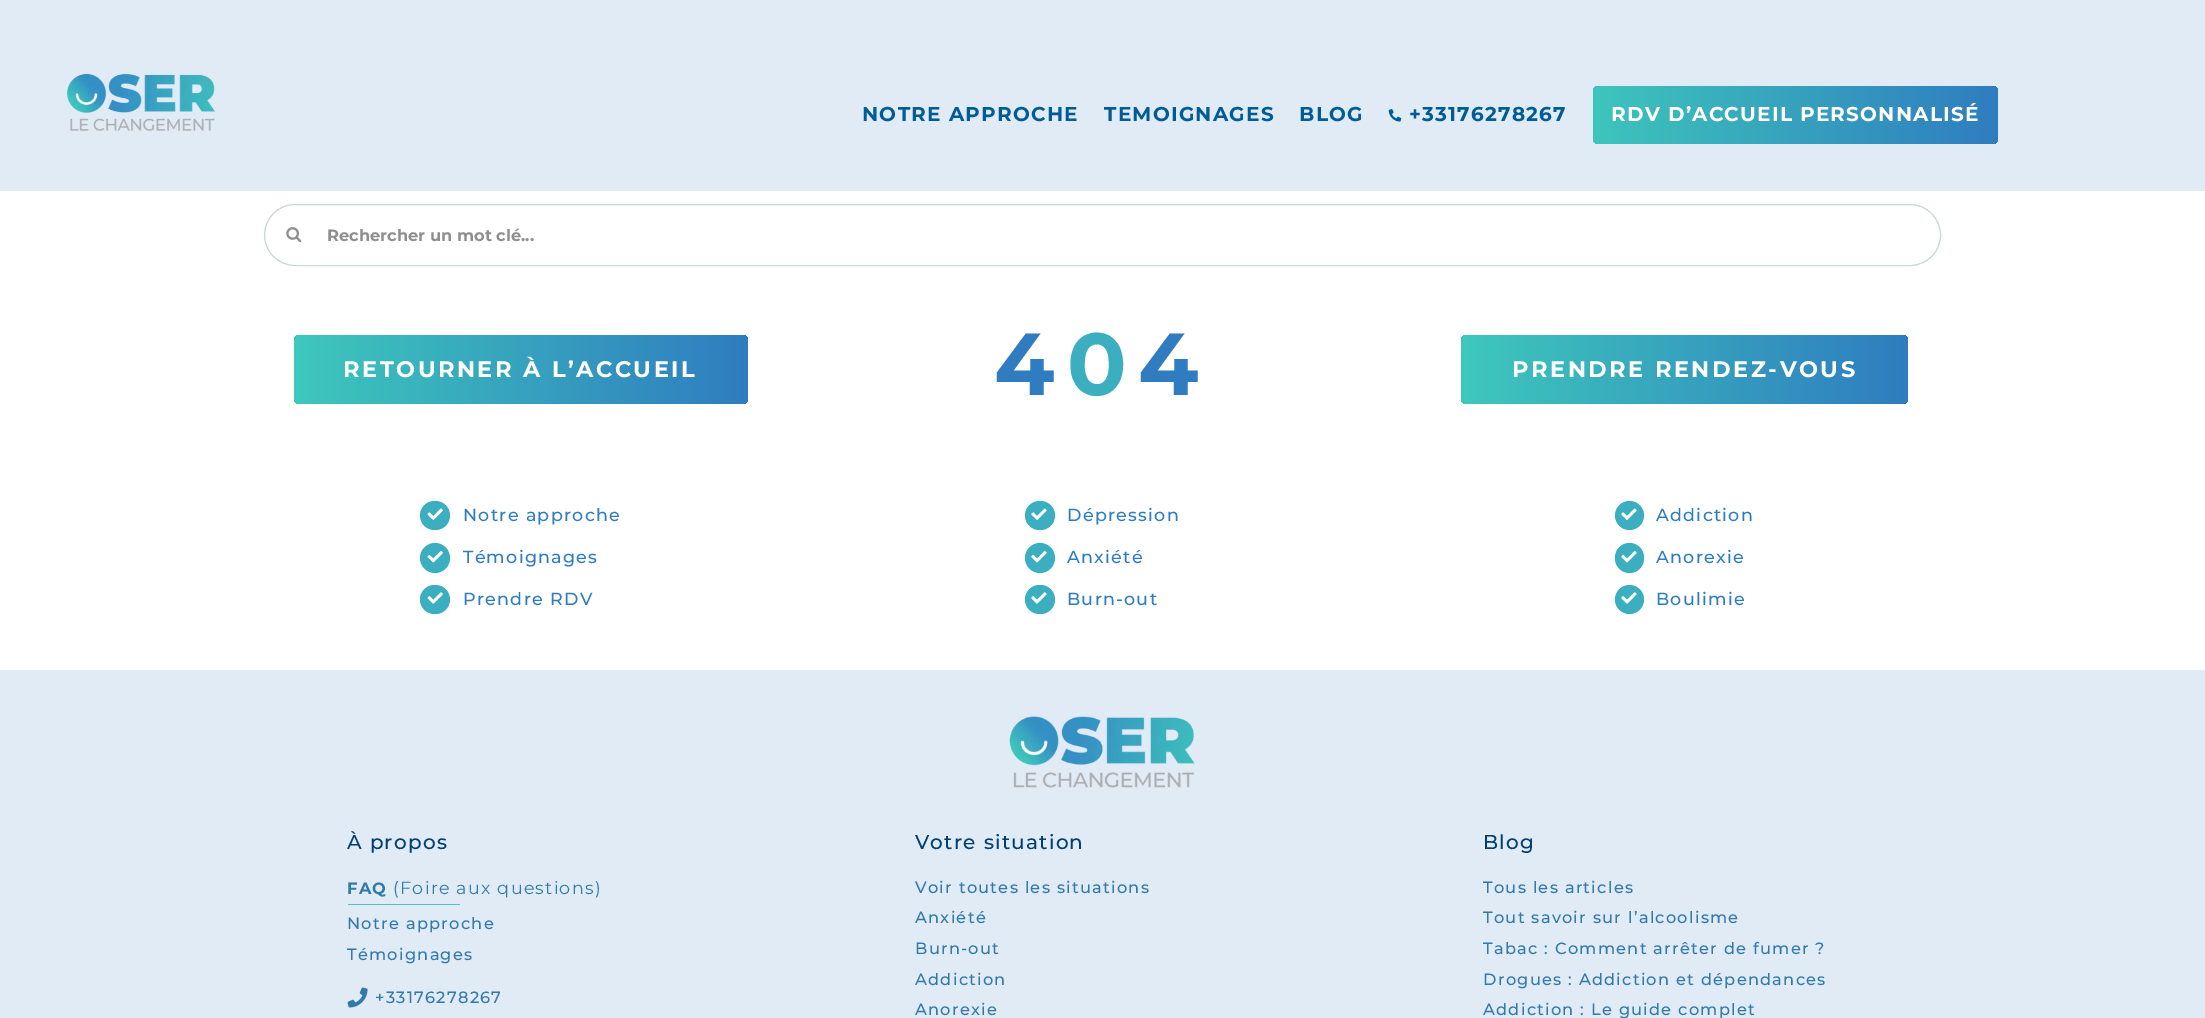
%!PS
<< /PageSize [2205 1018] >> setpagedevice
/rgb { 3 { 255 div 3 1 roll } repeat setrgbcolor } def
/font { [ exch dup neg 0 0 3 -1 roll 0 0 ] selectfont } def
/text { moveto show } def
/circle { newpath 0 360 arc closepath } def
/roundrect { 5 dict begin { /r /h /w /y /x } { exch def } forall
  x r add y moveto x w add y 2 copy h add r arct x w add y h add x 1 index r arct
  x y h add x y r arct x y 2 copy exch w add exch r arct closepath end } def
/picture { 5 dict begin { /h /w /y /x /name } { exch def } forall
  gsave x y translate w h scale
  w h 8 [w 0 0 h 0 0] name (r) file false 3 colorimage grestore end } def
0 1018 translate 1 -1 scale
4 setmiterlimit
255 255 255 rgb
0 0 2205 1018 rectfill
225 235 246 rgb
0 0 2205 191 rectfill
(img_01.rgb) 66 73 150 58 picture
(img_02.rgb) 1388 109 14 13 picture
gsave 1593 86 405 58 6 roundrect clip newpath
<< /ShadingType 2 /ColorSpace /DeviceRGB /Coords [1593 115 1998 115] /Extend [true true] /Function << /FunctionType 2 /Domain [0 1] /C0 [0.243 0.773 0.737] /C1 [0.184 0.49 0.753] /N 1 >> >> shfill grestore
200 215 217 rgb
264.5 204.5 1676 61 30.5 roundrect stroke
(img_03.rgb) 286 227 16 16 picture
gsave 294 335 454 69 6 roundrect clip newpath
<< /ShadingType 2 /ColorSpace /DeviceRGB /Coords [294 369 748 369] /Extend [true true] /Function << /FunctionType 3 /Domain [0 1] /Functions [<< /FunctionType 2 /Domain [0 1] /C0 [0.243 0.78 0.737] /C1 [0.243 0.78 0.737] /N 1 >> << /FunctionType 2 /Domain [0 1] /C0 [0.243 0.78 0.737] /C1 [0.184 0.49 0.753] /N 1 >>] /Bounds [0.01] /Encode [0 1 0 1] >> >> shfill grestore
gsave 1461 335 447 69 6 roundrect clip newpath
<< /ShadingType 2 /ColorSpace /DeviceRGB /Coords [1461 369 1908 369] /Extend [true true] /Function << /FunctionType 3 /Domain [0 1] /Functions [<< /FunctionType 2 /Domain [0 1] /C0 [0.243 0.78 0.737] /C1 [0.243 0.78 0.737] /N 1 >> << /FunctionType 2 /Domain [0 1] /C0 [0.243 0.78 0.737] /C1 [0.184 0.49 0.753] /N 1 >>] /Bounds [0.01] /Encode [0 1 0 1] >> >> shfill grestore
59 175 191 rgb
420 501 30 29 14.5 roundrect fill
(img_04.rgb) 427 508 16 12 picture
435 558 15 circle fill
(img_05.rgb) 427 551 16 12 picture
420 585 30 29 14.5 roundrect fill
(img_06.rgb) 427 592 16 12 picture
1025 501 30 29 14.5 roundrect fill
(img_07.rgb) 1031 508 16 12 picture
1040 558 15 circle fill
(img_08.rgb) 1031 551 16 12 picture
1025 585 30 29 14.5 roundrect fill
(img_09.rgb) 1031 592 16 12 picture
1629.5 515.5 14.5 circle fill
(img_07.rgb) 1621 508 16 12 picture
1615 543 29 30 14.5 roundrect fill
(img_08.rgb) 1621 551 16 12 picture
1629.5 599.5 14.5 circle fill
(img_09.rgb) 1621 592 16 12 picture
225 235 246 rgb
0 670 2205 348 rectfill
(img_10.rgb) 1009 716 186 72 picture
91 192 191 rgb
348 904 112 1 rectfill
(img_11.rgb) 347 987 21 21 picture
/Montserrat-Bold 20 font
0 92 150 rgb
862 121 moveto 1.25 0 (NOTRE APPROCHE) ashow
1104 121 moveto 1.25 0 (TEMOIGNAGES) ashow
1299 121 moveto 1.25 0 (BLOG) ashow
1409 121 moveto 1.25 0 (+33176278267) ashow
255 255 255 rgb
1611 121 moveto 1.25 0 (RDV D’ACCUEIL PERSONNALISÉ) ashow
/Montserrat-Bold 16.25 font
142 142 142 rgb
(Rechercher un mot clé...) 327 241 text
/Montserrat-Bold 22.5 font
255 255 255 rgb
343 377 moveto 2.5 0 (RETOURNER À L’ACCUEIL) ashow
/Montserrat-Bold 88 font
47 125 192 rgb
994 395 moveto 12 0 (4) ashow
59 175 191 rgb
1067 395 moveto 12 0 (0) ashow
47 125 192 rgb
1138 395 moveto 12 0 (4) ashow
/Montserrat-Bold 22.5 font
255 255 255 rgb
1512 377 moveto 2.5 0 (PRENDRE RENDEZ-VOUS) ashow
/Montserrat-Medium 17.5 font
47 125 192 rgb
463 521 moveto 1.25 0 (Notre approche) ashow
463 563 moveto 1.25 0 (Témoignages) ashow
463 605 moveto 1.25 0 (Prendre RDV) ashow
1067 521 moveto 1.25 0 (Dépression) ashow
1067 563 moveto 1.25 0 (Anxiété) ashow
1067 605 moveto 1.25 0 (Burn-out) ashow
1656 521 moveto 1.25 0 (Addiction) ashow
1656 563 moveto 1.25 0 (Anorexie) ashow
1656 605 moveto 1.25 0 (Boulimie) ashow
/Montserrat-Medium 20 font
0 63 114 rgb
347 849 moveto 1.25 0 (À propos) ashow
/Montserrat-Bold 16.25 font
49 122 170 rgb
347 894 moveto 1.25 0 (FAQ) ashow
/Montserrat-Regular 17.5 font
393 894 moveto 1.25 0 (\(Foire aux questions\)) ashow
/Montserrat-Medium 16.25 font
347 929 moveto 1.25 0 (Notre approche) ashow
347 960 moveto 1.25 0 (Témoignages) ashow
375 1003 moveto 1.25 0 (+33176278267) ashow
/Montserrat-Medium 20 font
0 63 114 rgb
915 849 moveto 1.25 0 (Votre situation) ashow
/Montserrat-Medium 16.25 font
49 122 170 rgb
915 893 moveto 1.25 0 (Voir toutes les situations) ashow
915 923 moveto 1.25 0 (Anxiété) ashow
915 954 moveto 1.25 0 (Burn-out) ashow
915 985 moveto 1.25 0 (Addiction) ashow
915 1015 moveto 1.25 0 (Anorexie) ashow
/Montserrat-Medium 20 font
0 63 114 rgb
1483 849 moveto 1.25 0 (Blog) ashow
/Montserrat-Medium 16.25 font
49 122 170 rgb
1483 893 moveto 1.25 0 (Tous les articles) ashow
1483 923 moveto 1.25 0 (Tout savoir sur l’alcoolisme) ashow
1483 954 moveto 1.25 0 (Tabac : Comment arrêter de fumer ?) ashow
1483 985 moveto 1.25 0 (Drogues : Addiction et dépendances) ashow
1483 1015 moveto 1.25 0 (Addiction : Le guide complet) ashow
showpage
